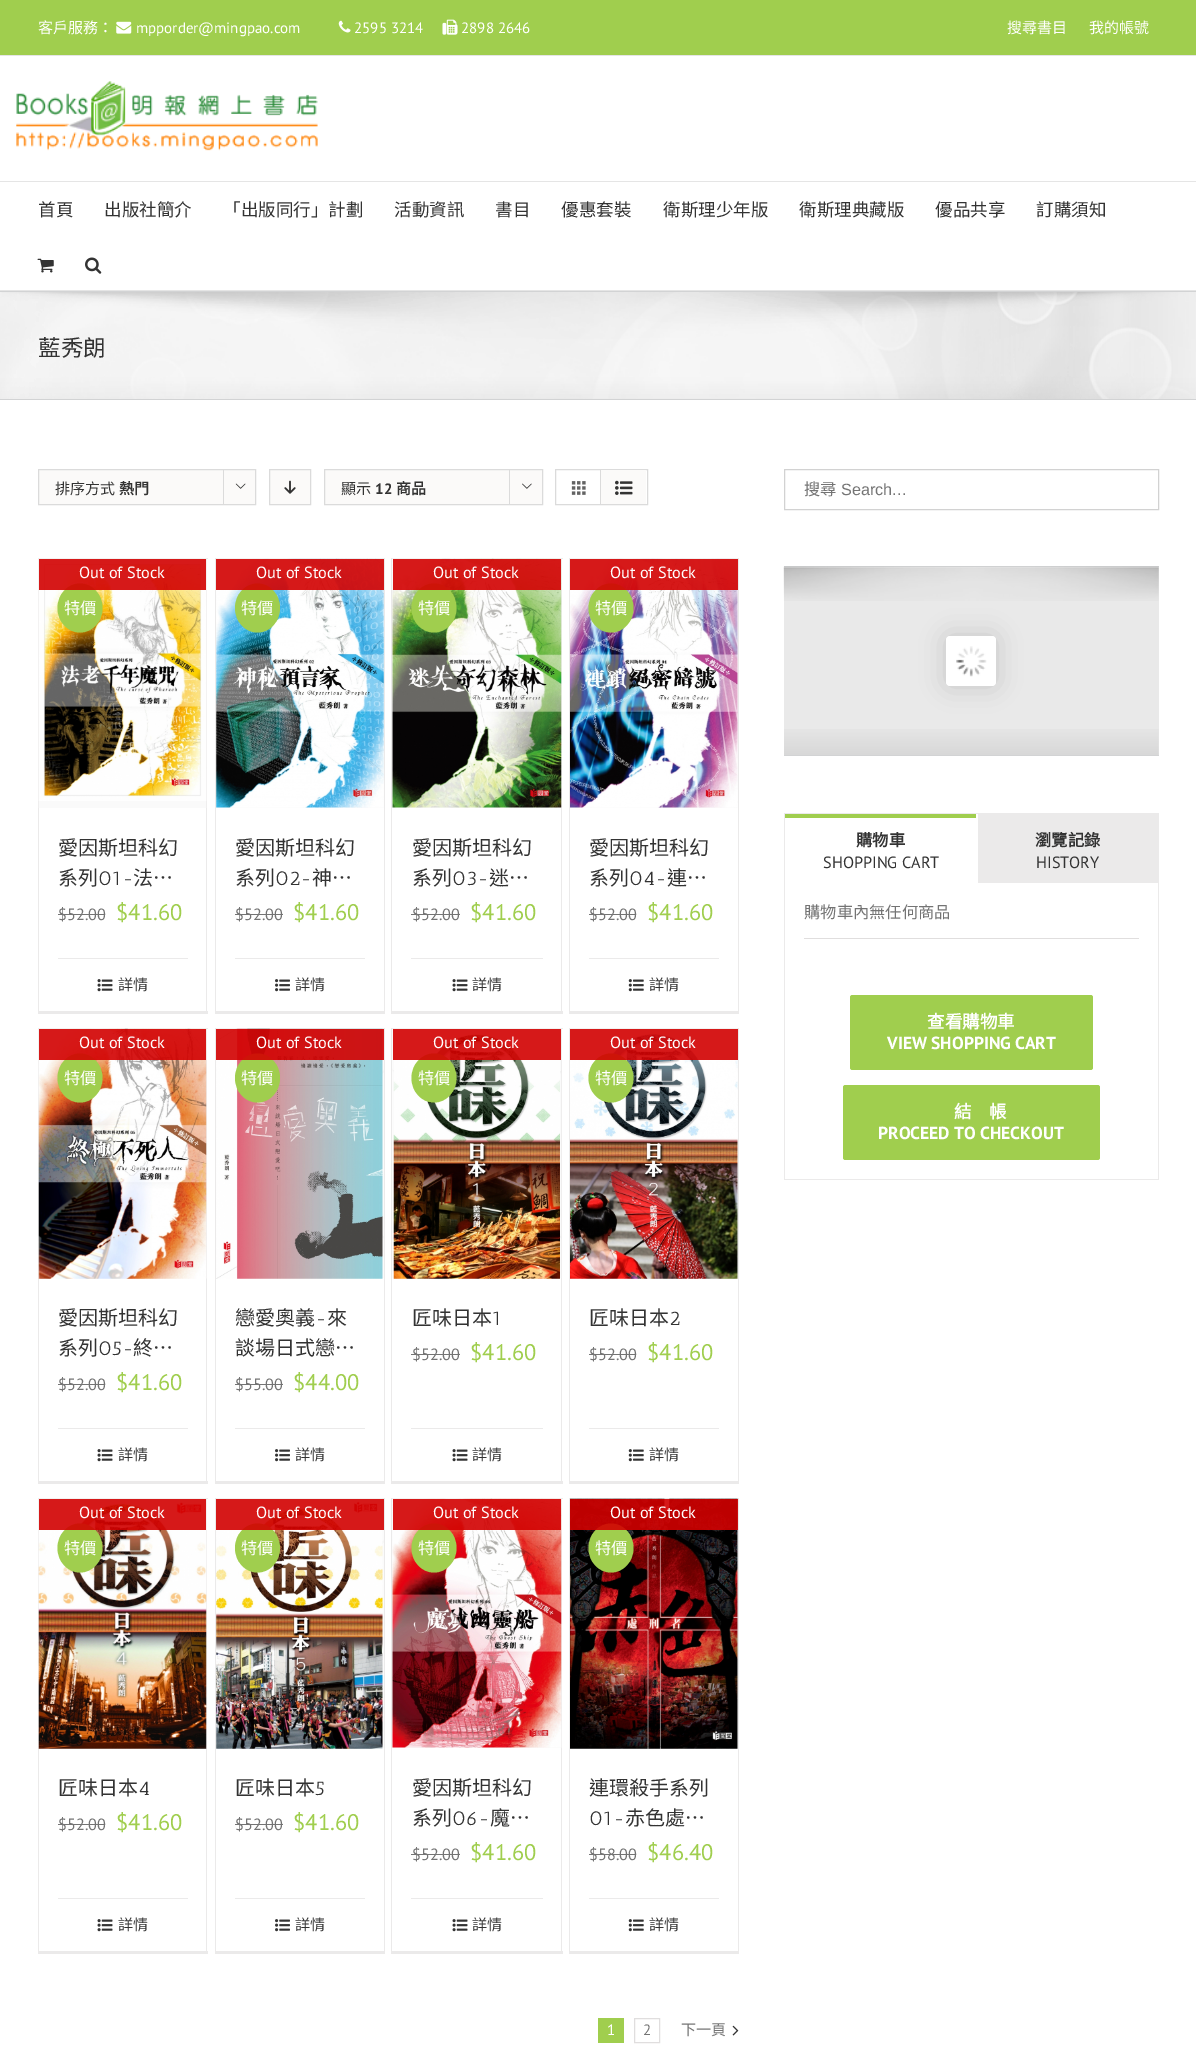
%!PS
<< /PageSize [1196 2046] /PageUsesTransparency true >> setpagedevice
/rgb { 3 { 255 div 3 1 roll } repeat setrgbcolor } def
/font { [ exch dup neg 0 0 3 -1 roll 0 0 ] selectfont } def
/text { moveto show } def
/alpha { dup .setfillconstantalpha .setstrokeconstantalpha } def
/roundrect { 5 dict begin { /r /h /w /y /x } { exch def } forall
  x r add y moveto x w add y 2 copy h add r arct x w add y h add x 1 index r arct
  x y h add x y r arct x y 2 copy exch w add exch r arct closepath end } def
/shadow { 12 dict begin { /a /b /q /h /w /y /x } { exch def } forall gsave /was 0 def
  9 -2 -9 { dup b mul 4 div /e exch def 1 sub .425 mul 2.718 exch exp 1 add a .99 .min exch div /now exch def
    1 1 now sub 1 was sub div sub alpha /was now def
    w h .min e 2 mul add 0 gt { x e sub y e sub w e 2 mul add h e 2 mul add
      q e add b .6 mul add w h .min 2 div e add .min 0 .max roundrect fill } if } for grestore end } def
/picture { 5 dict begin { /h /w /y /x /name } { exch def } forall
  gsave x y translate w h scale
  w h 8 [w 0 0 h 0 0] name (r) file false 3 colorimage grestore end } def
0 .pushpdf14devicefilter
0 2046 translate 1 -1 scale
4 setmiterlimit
255 255 255 rgb
0 0 1196 2046 rectfill
160 206 78 rgb
0 0 1196 55 rectfill
229 229 229 rgb
0 55 1196 1 rectfill
(img_01.rgb) 116 21 16 13 picture
(img_02.rgb) 338 20 13 13 picture
(img_03.rgb) 442 19 16 16 picture
0 181 1196 1 rectfill
(img_04.rgb) 16 81 302 70 picture
0 290 1196 1 rectfill
(img_05.rgb) 37 258 17 15 picture
(img_06.rgb) 85 257 17 17 picture
246 246 246 rgb
0 292 1196 107 rectfill
(img_07.rgb) 0 292 1196 107 picture
210 211 212 rgb
0 291 1196 1 rectfill
0 399 1196 1 rectfill
251 250 249 rgb
38.5 469.5 moveto 217 0 rlineto 0 35 rlineto -217 0 rlineto closepath gsave fill grestore
219 219 219 rgb
stroke
223 469 1 36 rectfill
(img_08.rgb) 235 483 11 6 picture
251 250 249 rgb
269.5 469.5 moveto 41 0 rlineto 0 35 rlineto -41 0 rlineto closepath gsave fill grestore
219 219 219 rgb
stroke
(img_09.rgb) 284 480 12 14 picture
251 250 249 rgb
324.5 469.5 moveto 218 0 rlineto 0 35 rlineto -218 0 rlineto closepath gsave fill grestore
219 219 219 rgb
stroke
509 469 1 36 rectfill
(img_10.rgb) 522 483 10 6 picture
555.5 469.5 92 35 rectstroke
600 470 1 34 rectfill
(img_11.rgb) 571 481 15 14 picture
251 250 249 rgb
601 470 45 34 rectfill
(img_12.rgb) 615 480 18 15 picture
235 234 234 rgb
38 558 170 1 rectfill
206 558 1 456 rectfill
38 1011 170 3 rectfill
38 558 1 456 rectfill
(img_13.rgb) 38 558 169 250 picture
(img_14.rgb) 38 558 169 243 picture
160 206 78 rgb
80 583.5 moveto 12.5 0 22.5 11 22.5 24.5 rcurveto 0 13.5 -10 24.5 -22.5 24.5 rcurveto -12.5 0 -22.5 -11 -22.5 -24.5 rcurveto 0 -13.5 10 -24.5 22.5 -24.5 rcurveto closepath fill
0.9 alpha
210 0 0 rgb
39 559 167 31 rectfill
1 alpha
235 234 234 rgb
58 958 130 1 rectfill
116 116 116 rgb
58 914 47 1 rectfill
(img_15.rgb) 97 979 16 13 picture
235 234 234 rgb
215 558 170 1 rectfill
384 558 1 456 rectfill
215 1011 170 3 rectfill
215 558 1 456 rectfill
(img_16.rgb) 216 558 168 250 picture
(img_17.rgb) 216 558 168 250 picture
160 206 78 rgb
257.5 583.5 moveto 12.5 0 22.5 11 22.5 24.5 rcurveto 0 13.5 -10 24.5 -22.5 24.5 rcurveto -12.5 0 -22.5 -11 -22.5 -24.5 rcurveto 0 -13.5 10 -24.5 22.5 -24.5 rcurveto closepath fill
0.9 alpha
210 0 0 rgb
216 559 168 31 rectfill
1 alpha
235 234 234 rgb
235 958 130 1 rectfill
116 116 116 rgb
235 914 48 1 rectfill
(img_18.rgb) 275 979 15 13 picture
235 234 234 rgb
391 558 172 1 rectfill
561 558 1 456 rectfill
391 1011 172 3 rectfill
391 558 1 456 rectfill
(img_19.rgb) 392 558 170 250 picture
(img_20.rgb) 392 558 170 250 picture
160 206 78 rgb
434 583.5 moveto 12.5 0 22.5 11 22.5 24.5 rcurveto 0 13.5 -10 24.5 -22.5 24.5 rcurveto -12.5 0 -22.5 -11 -22.5 -24.5 rcurveto 0 -13.5 10 -24.5 22.5 -24.5 rcurveto closepath fill
0.9 alpha
210 0 0 rgb
393 559 168 31 rectfill
1 alpha
235 234 234 rgb
411 958 132 1 rectfill
116 116 116 rgb
411 914 49 1 rectfill
(img_15.rgb) 452 979 16 13 picture
235 234 234 rgb
569 558 170 1 rectfill
738 558 1 456 rectfill
569 1011 170 3 rectfill
569 558 1 456 rectfill
(img_21.rgb) 570 558 168 250 picture
(img_22.rgb) 570 558 168 250 picture
160 206 78 rgb
611 583.5 moveto 12.5 0 22.5 11 22.5 24.5 rcurveto 0 13.5 -10 24.5 -22.5 24.5 rcurveto -12.5 0 -22.5 -11 -22.5 -24.5 rcurveto 0 -13.5 10 -24.5 22.5 -24.5 rcurveto closepath fill
0.9 alpha
210 0 0 rgb
570 559 168 31 rectfill
1 alpha
235 234 234 rgb
589 958 130 1 rectfill
116 116 116 rgb
589 914 47 1 rectfill
(img_23.rgb) 628 979 16 13 picture
235 234 234 rgb
38 1028 170 1 rectfill
206 1028 1 456 rectfill
38 1481 170 3 rectfill
38 1028 1 456 rectfill
(img_24.rgb) 38 1028 169 250 picture
(img_25.rgb) 38 1028 169 251 picture
160 206 78 rgb
80 1053.5 moveto 12.5 0 22.5 11 22.5 24.5 rcurveto 0 13.5 -10 24.5 -22.5 24.5 rcurveto -12.5 0 -22.5 -11 -22.5 -24.5 rcurveto 0 -13.5 10 -24.5 22.5 -24.5 rcurveto closepath fill
0.9 alpha
210 0 0 rgb
39 1029 167 31 rectfill
1 alpha
235 234 234 rgb
58 1428 130 1 rectfill
116 116 116 rgb
58 1384 47 1 rectfill
(img_15.rgb) 97 1449 16 13 picture
235 234 234 rgb
215 1028 170 1 rectfill
384 1028 1 456 rectfill
215 1481 170 3 rectfill
215 1028 1 456 rectfill
(img_26.rgb) 216 1028 168 250 picture
(img_27.rgb) 216 1028 167 251 picture
160 206 78 rgb
257.5 1053.5 moveto 12.5 0 22.5 11 22.5 24.5 rcurveto 0 13.5 -10 24.5 -22.5 24.5 rcurveto -12.5 0 -22.5 -11 -22.5 -24.5 rcurveto 0 -13.5 10 -24.5 22.5 -24.5 rcurveto closepath fill
0.9 alpha
210 0 0 rgb
216 1029 168 31 rectfill
1 alpha
235 234 234 rgb
235 1428 130 1 rectfill
116 116 116 rgb
235 1384 48 1 rectfill
(img_18.rgb) 275 1449 15 13 picture
235 234 234 rgb
391 1028 172 1 rectfill
561 1028 1 456 rectfill
391 1481 172 3 rectfill
391 1028 1 456 rectfill
(img_28.rgb) 392 1028 170 250 picture
(img_29.rgb) 393 1028 167 251 picture
160 206 78 rgb
434 1053.5 moveto 12.5 0 22.5 11 22.5 24.5 rcurveto 0 13.5 -10 24.5 -22.5 24.5 rcurveto -12.5 0 -22.5 -11 -22.5 -24.5 rcurveto 0 -13.5 10 -24.5 22.5 -24.5 rcurveto closepath fill
0.9 alpha
210 0 0 rgb
393 1029 168 31 rectfill
1 alpha
235 234 234 rgb
411 1428 132 1 rectfill
116 116 116 rgb
411 1354 49 1 rectfill
(img_15.rgb) 452 1449 16 13 picture
235 234 234 rgb
569 1028 170 1 rectfill
738 1028 1 456 rectfill
569 1481 170 3 rectfill
569 1028 1 456 rectfill
(img_30.rgb) 570 1028 168 250 picture
(img_31.rgb) 570 1028 168 251 picture
160 206 78 rgb
611 1053.5 moveto 12.5 0 22.5 11 22.5 24.5 rcurveto 0 13.5 -10 24.5 -22.5 24.5 rcurveto -12.5 0 -22.5 -11 -22.5 -24.5 rcurveto 0 -13.5 10 -24.5 22.5 -24.5 rcurveto closepath fill
0.9 alpha
210 0 0 rgb
570 1029 168 31 rectfill
1 alpha
235 234 234 rgb
589 1428 130 1 rectfill
116 116 116 rgb
589 1354 47 1 rectfill
(img_23.rgb) 628 1449 16 13 picture
235 234 234 rgb
38 1498 170 1 rectfill
206 1498 1 456 rectfill
38 1951 170 3 rectfill
38 1498 1 456 rectfill
(img_24.rgb) 38 1498 169 250 picture
(img_32.rgb) 38 1498 169 251 picture
160 206 78 rgb
80 1523.5 moveto 12.5 0 22.5 11 22.5 24.5 rcurveto 0 13.5 -10 24.5 -22.5 24.5 rcurveto -12.5 0 -22.5 -11 -22.5 -24.5 rcurveto 0 -13.5 10 -24.5 22.5 -24.5 rcurveto closepath fill
0.9 alpha
210 0 0 rgb
39 1499 167 31 rectfill
1 alpha
235 234 234 rgb
58 1898 130 1 rectfill
116 116 116 rgb
58 1824 47 1 rectfill
(img_15.rgb) 97 1919 16 13 picture
235 234 234 rgb
215 1498 170 1 rectfill
384 1498 1 456 rectfill
215 1951 170 3 rectfill
215 1498 1 456 rectfill
(img_26.rgb) 216 1498 168 250 picture
(img_33.rgb) 216 1498 167 251 picture
160 206 78 rgb
257.5 1523.5 moveto 12.5 0 22.5 11 22.5 24.5 rcurveto 0 13.5 -10 24.5 -22.5 24.5 rcurveto -12.5 0 -22.5 -11 -22.5 -24.5 rcurveto 0 -13.5 10 -24.5 22.5 -24.5 rcurveto closepath fill
0.9 alpha
210 0 0 rgb
216 1499 168 31 rectfill
1 alpha
235 234 234 rgb
235 1898 130 1 rectfill
116 116 116 rgb
235 1824 48 1 rectfill
(img_18.rgb) 275 1919 15 13 picture
235 234 234 rgb
391 1498 172 1 rectfill
561 1498 1 456 rectfill
391 1951 172 3 rectfill
391 1498 1 456 rectfill
(img_28.rgb) 392 1498 170 250 picture
(img_34.rgb) 392 1498 170 250 picture
160 206 78 rgb
434 1523.5 moveto 12.5 0 22.5 11 22.5 24.5 rcurveto 0 13.5 -10 24.5 -22.5 24.5 rcurveto -12.5 0 -22.5 -11 -22.5 -24.5 rcurveto 0 -13.5 10 -24.5 22.5 -24.5 rcurveto closepath fill
0.9 alpha
210 0 0 rgb
393 1499 168 31 rectfill
1 alpha
235 234 234 rgb
411 1898 132 1 rectfill
116 116 116 rgb
411 1854 49 1 rectfill
(img_15.rgb) 452 1919 16 13 picture
235 234 234 rgb
569 1498 170 1 rectfill
738 1498 1 456 rectfill
569 1951 170 3 rectfill
569 1498 1 456 rectfill
(img_30.rgb) 570 1498 168 250 picture
(img_35.rgb) 570 1498 168 251 picture
160 206 78 rgb
611 1523.5 moveto 12.5 0 22.5 11 22.5 24.5 rcurveto 0 13.5 -10 24.5 -22.5 24.5 rcurveto -12.5 0 -22.5 -11 -22.5 -24.5 rcurveto 0 -13.5 10 -24.5 22.5 -24.5 rcurveto closepath fill
0.9 alpha
210 0 0 rgb
570 1499 168 31 rectfill
1 alpha
235 234 234 rgb
589 1898 130 1 rectfill
116 116 116 rgb
589 1854 47 1 rectfill
(img_23.rgb) 628 1919 16 13 picture
160 206 78 rgb
598 2018 26 25 rectfill
224 222 222 rgb
634.5 2018.5 25 24 rectstroke
(img_36.rgb) 732 2025 7 11 picture
210 210 210 rgb
784.5 469.5 374 40 rectstroke
233 233 233 rgb
784 567 375 188 rectfill
210 211 212 rgb
784 566 375 1 rectfill
784 755 375 1 rectfill
(img_37.rgb) 783 566 376 35 picture
0 0 0 rgb
946 636 50 50 4 12.5 0.15 shadow
255 255 255 rgb
946 636 50 50 4 roundrect fill
(img_38.rgb) 956 646 31 31 picture
(img_39.rgb) 784 729 375 26 picture
235 234 234 rgb
784 813 375 1 rectfill
1158 881 1 299 rectfill
1158 813 1 70 rectfill
784 1179 375 1 rectfill
784 881 1 299 rectfill
784 813 1 70 rectfill
160 206 78 rgb
785 814 191 4 rectfill
235 234 234 rgb
978 814 180 69 rectfill
224 222 222 rgb
804 938 335 1 rectfill
160 206 78 rgb
850 995 243 75 2.5 roundrect fill
843 1085 257 75 2.5 roundrect fill
/NotoSansCJKTC-Regular 15 font
255 255 255 rgb
(客戶服務：) 38 33 text
/PTSans-Regular 15 font
(mpporder@mingpao.com) 136 33 text
(2595 3214) 354 33 text
(2898 2646) 461 33 text
/NotoSansCJKTC-Regular 15 font
(搜尋書目) 1007 33 text
(我的帳號) 1089 33 text
/NotoSansCJKTC-Regular 17.5 font
51 51 51 rgb
(首頁) 38 216 text
(出版社簡介) 104 216 text
(「出版同行」計劃) 223 216 text
(活動資訊) 394 216 text
(書目) 495 216 text
(優惠套裝) 561 216 text
(衛斯理少年版) 663 216 text
(衛斯理典藏版) 799 216 text
(優品共享) 935 216 text
(訂購須知) 1036 216 text
/NotoSansCJKTC-Regular 22.5 font
(藍秀朗) 38 356 text
/NotoSansCJKTC-Regular 15 font
(排序方式) 55 494 text
/NotoSansCJKTC-Bold 15 font
(熱門) 119 494 text
/NotoSansCJKTC-Regular 15 font
(顯示) 341 494 text
/PTSans-Bold 15 font
(12) 375 494 text
/NotoSansCJKTC-Bold 15 font
(商品) 396 494 text
/PTSans-Regular 16.25 font
255 255 255 rgb
(Out of Stock) 79 578 text
/NotoSansCJKTC-Regular 16.25 font
(特價) 64 614 text
/NotoSansCJKTC-Regular 20 font
51 51 51 rgb
(愛因斯坦科幻) 58 855 text
(系列) 58 885 text
/AnticSlab-Regular 20 font
(01-) 98 885 text
/NotoSansCJKTC-Regular 20 font
(法…) 133 885 text
/PTSans-Regular 16.25 font
116 116 116 rgb
($52.00) 58 920 text
/PTSans-Regular 22.5 font
160 206 78 rgb
($41.60) 116 920 text
/NotoSansCJKTC-Regular 15 font
51 51 51 rgb
(詳情) 118 990 text
/PTSans-Regular 16.25 font
255 255 255 rgb
(Out of Stock) 256 578 text
/NotoSansCJKTC-Regular 16.25 font
(特價) 241 614 text
/NotoSansCJKTC-Regular 20 font
51 51 51 rgb
(愛因斯坦科幻) 235 855 text
(系列) 235 885 text
/AnticSlab-Regular 20 font
(02-) 275 885 text
/NotoSansCJKTC-Regular 20 font
(神…) 312 885 text
/PTSans-Regular 16.25 font
116 116 116 rgb
($52.00) 235 920 text
/PTSans-Regular 22.5 font
160 206 78 rgb
($41.60) 293 920 text
/NotoSansCJKTC-Regular 15 font
51 51 51 rgb
(詳情) 295 990 text
/PTSans-Regular 16.25 font
255 255 255 rgb
(Out of Stock) 433 578 text
/NotoSansCJKTC-Regular 16.25 font
(特價) 418 614 text
/NotoSansCJKTC-Regular 20 font
51 51 51 rgb
(愛因斯坦科幻) 412 855 text
(系列) 412 885 text
/AnticSlab-Regular 20 font
(03-) 452 885 text
/NotoSansCJKTC-Regular 20 font
(迷…) 489 885 text
/PTSans-Regular 16.25 font
116 116 116 rgb
($52.00) 412 920 text
/PTSans-Regular 22.5 font
160 206 78 rgb
($41.60) 470 920 text
/NotoSansCJKTC-Regular 15 font
51 51 51 rgb
(詳情) 472 990 text
/PTSans-Regular 16.25 font
255 255 255 rgb
(Out of Stock) 610 578 text
/NotoSansCJKTC-Regular 16.25 font
(特價) 595 614 text
/NotoSansCJKTC-Regular 20 font
51 51 51 rgb
(愛因斯坦科幻) 589 855 text
(系列) 589 885 text
/AnticSlab-Regular 20 font
(04-) 629 885 text
/NotoSansCJKTC-Regular 20 font
(連…) 667 885 text
/PTSans-Regular 16.25 font
116 116 116 rgb
($52.00) 589 920 text
/PTSans-Regular 22.5 font
160 206 78 rgb
($41.60) 647 920 text
/NotoSansCJKTC-Regular 15 font
51 51 51 rgb
(詳情) 649 990 text
/PTSans-Regular 16.25 font
255 255 255 rgb
(Out of Stock) 79 1048 text
/NotoSansCJKTC-Regular 16.25 font
(特價) 64 1084 text
/NotoSansCJKTC-Regular 20 font
51 51 51 rgb
(愛因斯坦科幻) 58 1325 text
(系列) 58 1355 text
/AnticSlab-Regular 20 font
(05-) 98 1355 text
/NotoSansCJKTC-Regular 20 font
(終…) 133 1355 text
/PTSans-Regular 16.25 font
116 116 116 rgb
($52.00) 58 1390 text
/PTSans-Regular 22.5 font
160 206 78 rgb
($41.60) 116 1390 text
/NotoSansCJKTC-Regular 15 font
51 51 51 rgb
(詳情) 118 1460 text
/PTSans-Regular 16.25 font
255 255 255 rgb
(Out of Stock) 256 1048 text
/NotoSansCJKTC-Regular 16.25 font
(特價) 241 1084 text
/NotoSansCJKTC-Regular 20 font
51 51 51 rgb
(戀愛奧義) 235 1325 text
/AnticSlab-Regular 20 font
(-) 315 1325 text
/NotoSansCJKTC-Regular 20 font
(來) 327 1325 text
(談場日式戀…) 235 1355 text
/PTSans-Regular 16.25 font
116 116 116 rgb
($55.00) 235 1390 text
/PTSans-Regular 22.5 font
160 206 78 rgb
($44.00) 293 1390 text
/NotoSansCJKTC-Regular 15 font
51 51 51 rgb
(詳情) 295 1460 text
/PTSans-Regular 16.25 font
255 255 255 rgb
(Out of Stock) 433 1048 text
/NotoSansCJKTC-Regular 16.25 font
(特價) 418 1084 text
/NotoSansCJKTC-Regular 20 font
51 51 51 rgb
(匠味日本) 412 1325 text
/AnticSlab-Regular 20 font
(1) 492 1325 text
/PTSans-Regular 16.25 font
116 116 116 rgb
($52.00) 412 1360 text
/PTSans-Regular 22.5 font
160 206 78 rgb
($41.60) 470 1360 text
/NotoSansCJKTC-Regular 15 font
51 51 51 rgb
(詳情) 472 1460 text
/PTSans-Regular 16.25 font
255 255 255 rgb
(Out of Stock) 610 1048 text
/NotoSansCJKTC-Regular 16.25 font
(特價) 595 1084 text
/NotoSansCJKTC-Regular 20 font
51 51 51 rgb
(匠味日本) 589 1325 text
/AnticSlab-Regular 20 font
(2) 669 1325 text
/PTSans-Regular 16.25 font
116 116 116 rgb
($52.00) 589 1360 text
/PTSans-Regular 22.5 font
160 206 78 rgb
($41.60) 647 1360 text
/NotoSansCJKTC-Regular 15 font
51 51 51 rgb
(詳情) 649 1460 text
/PTSans-Regular 16.25 font
255 255 255 rgb
(Out of Stock) 79 1518 text
/NotoSansCJKTC-Regular 16.25 font
(特價) 64 1554 text
/NotoSansCJKTC-Regular 20 font
51 51 51 rgb
(匠味日本) 58 1795 text
/AnticSlab-Regular 20 font
(4) 138 1795 text
/PTSans-Regular 16.25 font
116 116 116 rgb
($52.00) 58 1830 text
/PTSans-Regular 22.5 font
160 206 78 rgb
($41.60) 116 1830 text
/NotoSansCJKTC-Regular 15 font
51 51 51 rgb
(詳情) 118 1930 text
/PTSans-Regular 16.25 font
255 255 255 rgb
(Out of Stock) 256 1518 text
/NotoSansCJKTC-Regular 16.25 font
(特價) 241 1554 text
/NotoSansCJKTC-Regular 20 font
51 51 51 rgb
(匠味日本) 235 1795 text
/AnticSlab-Regular 20 font
(5) 315 1795 text
/PTSans-Regular 16.25 font
116 116 116 rgb
($52.00) 235 1830 text
/PTSans-Regular 22.5 font
160 206 78 rgb
($41.60) 293 1830 text
/NotoSansCJKTC-Regular 15 font
51 51 51 rgb
(詳情) 295 1930 text
/PTSans-Regular 16.25 font
255 255 255 rgb
(Out of Stock) 433 1518 text
/NotoSansCJKTC-Regular 16.25 font
(特價) 418 1554 text
/NotoSansCJKTC-Regular 20 font
51 51 51 rgb
(愛因斯坦科幻) 412 1795 text
(系列) 412 1825 text
/AnticSlab-Regular 20 font
(06-) 452 1825 text
/NotoSansCJKTC-Regular 20 font
(魔…) 490 1825 text
/PTSans-Regular 16.25 font
116 116 116 rgb
($52.00) 412 1860 text
/PTSans-Regular 22.5 font
160 206 78 rgb
($41.60) 470 1860 text
/NotoSansCJKTC-Regular 15 font
51 51 51 rgb
(詳情) 472 1930 text
/PTSans-Regular 16.25 font
255 255 255 rgb
(Out of Stock) 610 1518 text
/NotoSansCJKTC-Regular 16.25 font
(特價) 595 1554 text
/NotoSansCJKTC-Regular 20 font
51 51 51 rgb
(連環殺手系列) 589 1795 text
/AnticSlab-Regular 20 font
(01-) 589 1825 text
/NotoSansCJKTC-Regular 20 font
(赤色處…) 625 1825 text
/PTSans-Regular 16.25 font
116 116 116 rgb
($58.00) 589 1860 text
/PTSans-Regular 22.5 font
160 206 78 rgb
($46.40) 647 1860 text
/NotoSansCJKTC-Regular 15 font
51 51 51 rgb
(詳情) 649 1930 text
/PTSans-Regular 15 font
255 255 255 rgb
(1) 607 2035 text
116 116 116 rgb
(2) 643 2035 text
/NotoSansCJKTC-Regular 15 font
(下一頁) 681 2035 text
/NotoSansCJKTC-Regular 16.25 font
(搜尋) 804 495 text
/LiberationSans-Regular 16.25 font
(Search...) 841 495 text
/NotoSansCJKTC-Bold 16.25 font
51 51 51 rgb
(購物車) 856 846 text
/PTSans-Regular 16.25 font
(SHOPPING CART) 823 868 text
/NotoSansCJKTC-Bold 16.25 font
(瀏覽記錄) 1035 846 text
/PTSans-Regular 16.25 font
(HISTORY) 1036 868 text
/NotoSansCJKTC-Regular 16.25 font
116 116 116 rgb
(購物車內無任何商品) 804 918 text
/NotoSansCJKTC-Bold 17.5 font
255 255 255 rgb
(查看購物車) 927 1028 text
/PTSans-Bold 17.5 font
(VIEW SHOPPING CART) 887 1049 text
/NotoSansCJKTC-Bold 17.5 font
(結　帳) 954 1118 text
/PTSans-Bold 17.5 font
(PROCEED TO CHECKOUT) 878 1139 text
.poppdf14devicefilter showpage
